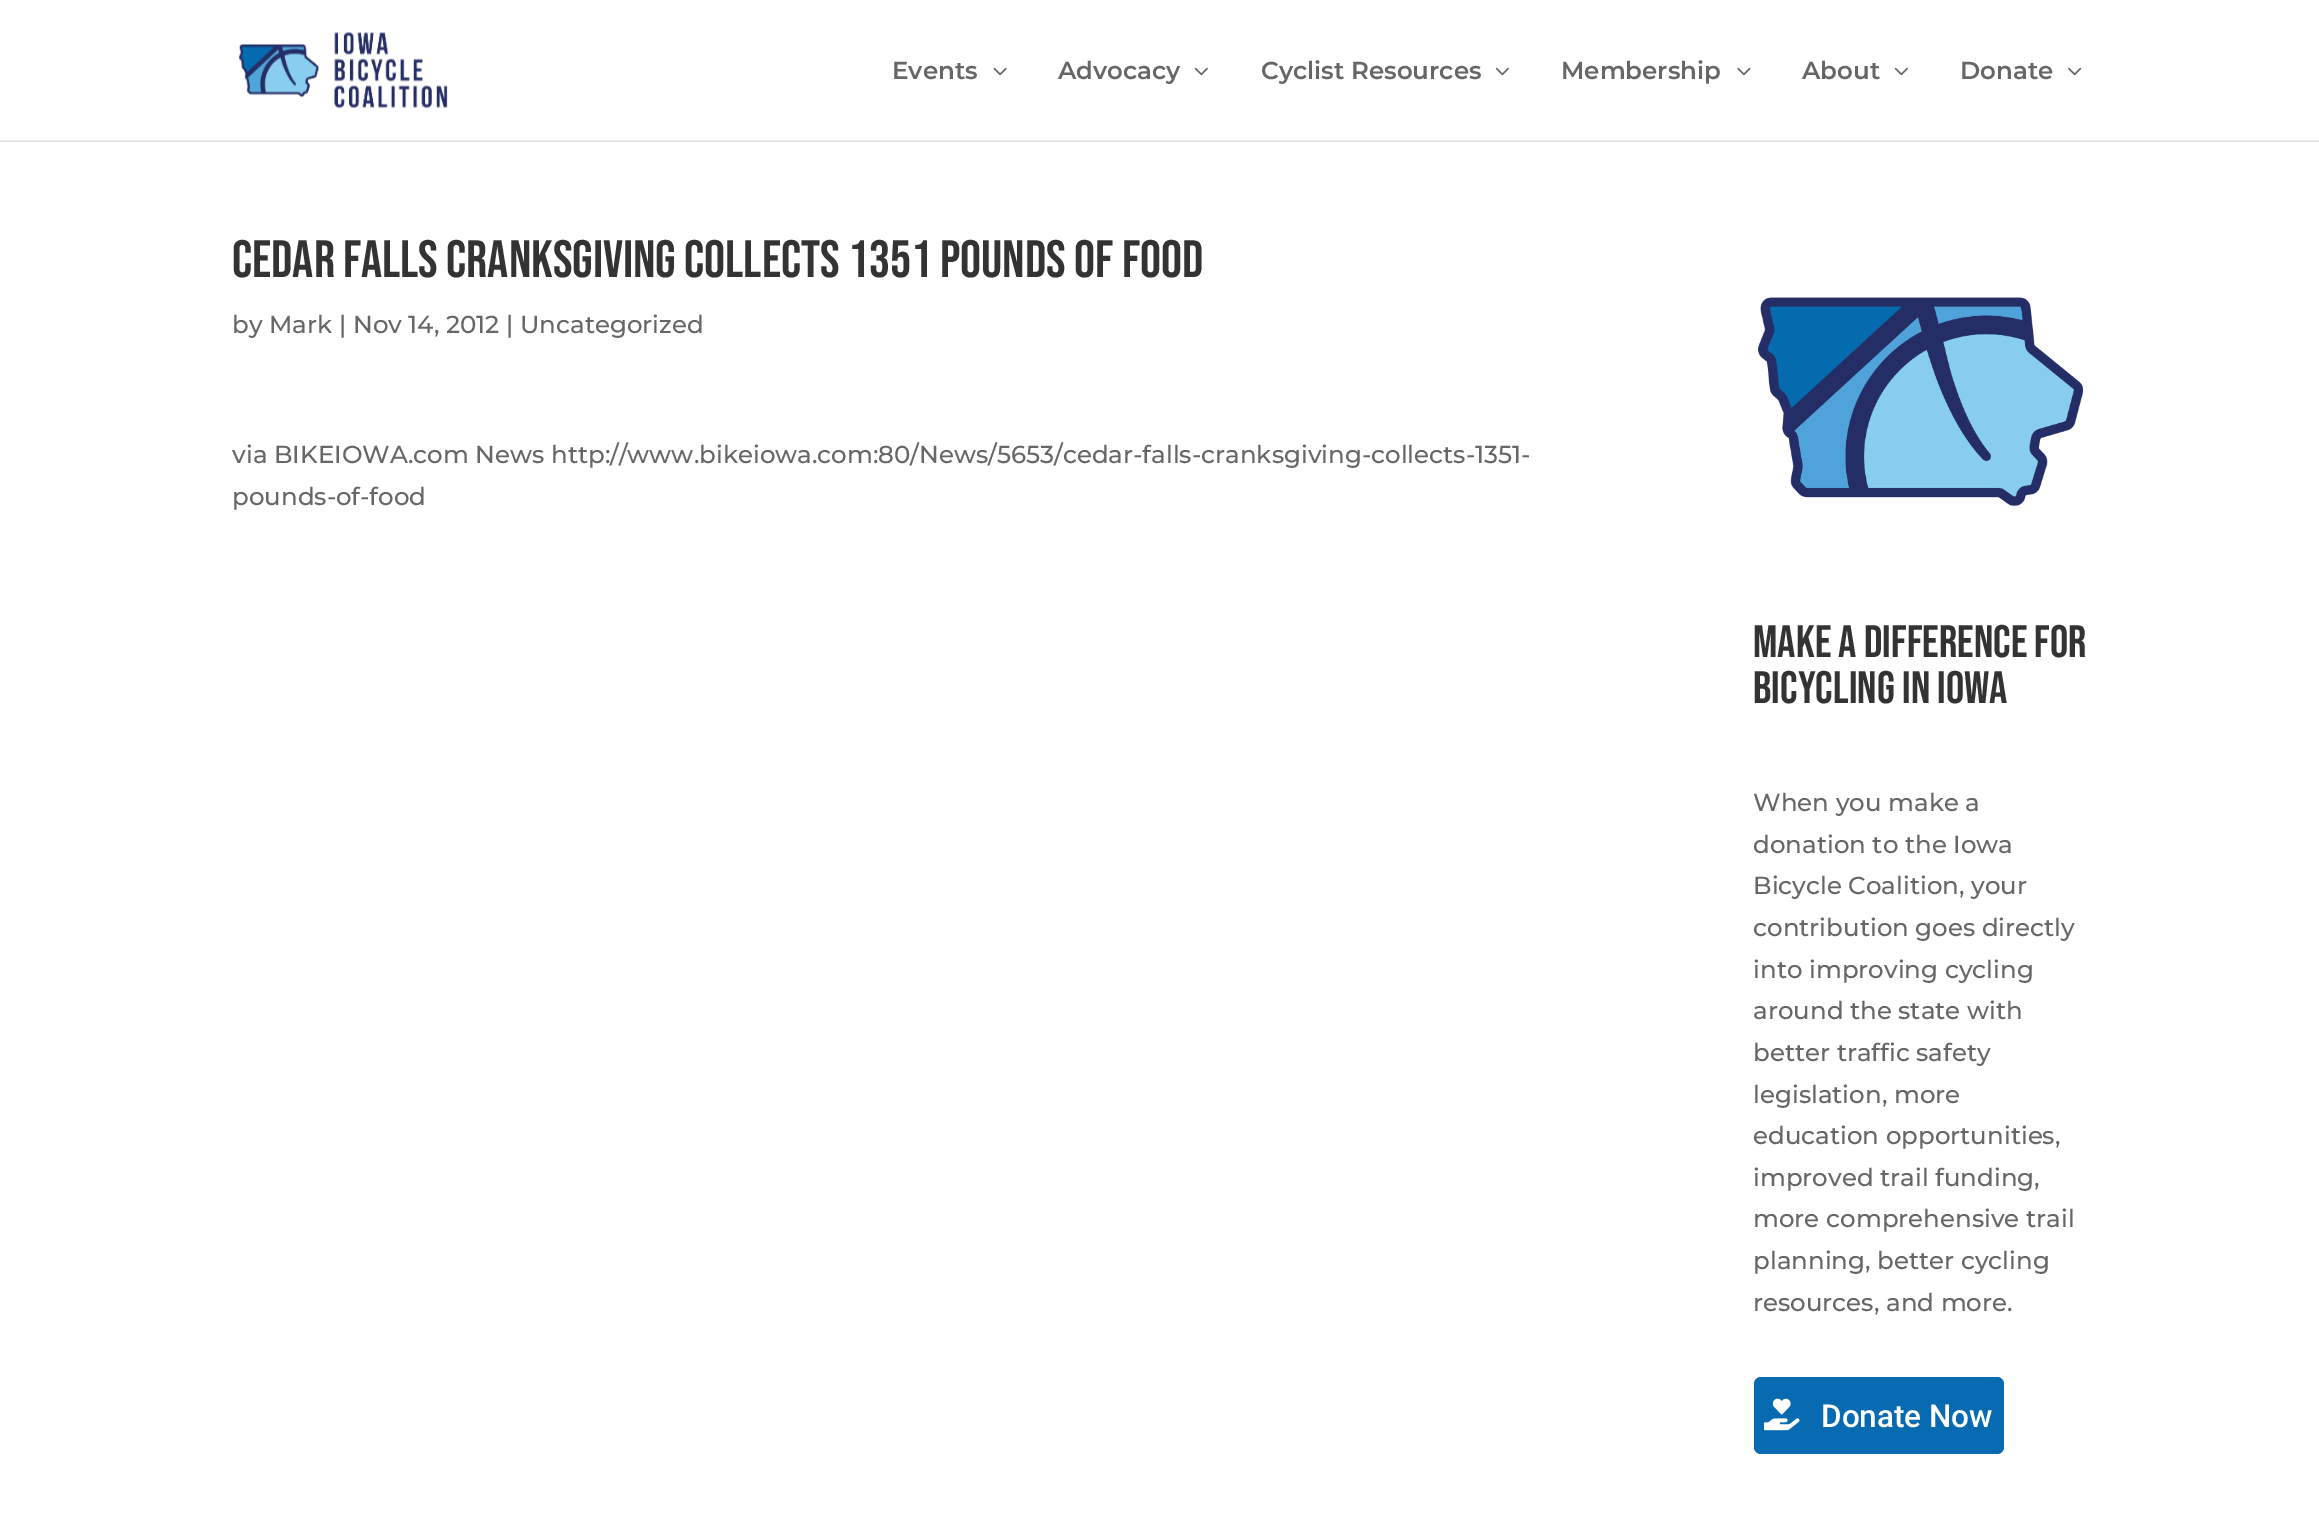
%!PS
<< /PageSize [2319 1530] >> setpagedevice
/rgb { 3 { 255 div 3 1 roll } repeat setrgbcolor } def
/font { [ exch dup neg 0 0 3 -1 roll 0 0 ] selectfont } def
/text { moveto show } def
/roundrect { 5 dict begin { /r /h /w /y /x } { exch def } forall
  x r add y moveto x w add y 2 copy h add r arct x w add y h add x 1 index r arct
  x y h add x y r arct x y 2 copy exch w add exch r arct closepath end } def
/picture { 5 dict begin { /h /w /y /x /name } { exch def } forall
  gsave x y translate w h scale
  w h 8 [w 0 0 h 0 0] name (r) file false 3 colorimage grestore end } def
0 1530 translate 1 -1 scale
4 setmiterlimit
255 255 255 rgb
0 0 2319 1530 rectfill
230 230 230 rgb
0 140 moveto 0 2 rlineto 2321 0 rlineto 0 -140 rlineto -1 0 rlineto 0 138 rlineto closepath fill
(img_01.rgb) 238 31 210 78 picture
(img_02.rgb) 993 67 14 9 picture
(img_03.rgb) 1194 67 14 9 picture
(img_03.rgb) 1495 67 14 9 picture
(img_04.rgb) 1737 67 14 9 picture
(img_03.rgb) 1894 67 14 9 picture
(img_05.rgb) 2068 67 14 9 picture
(img_06.rgb) 1758 297 326 209 picture
8 107 177 rgb
1754 1377 250 77 7 roundrect fill
(img_07.rgb) 1764 1398 36 33 picture
/Montserrat-SemiBold 24.5 font
102 102 102 rgb
(Events) 892 79 text
(Advocacy) 1058 79 text
(Cyclist Resources) 1261 79 text
(Membership) 1561 79 text
(About) 1802 79 text
(Donate) 1960 79 text
/BebasNeue-Regular 52.5 font
51 51 51 rgb
(Cedar Falls Cranksgiving collects 1351 pounds of food) 232 277 text
/Montserrat-Medium 24.5 font
102 102 102 rgb
(by Mark | Nov 14, 2012 | Uncategorized) 232 333 text
(via BIKEIOWA.com News http://www.bikeiowa.com:80/News/5653/cedar-falls-cranksgiving-collects-1351-) 232 463 text
(pounds-of-food) 232 505 text
/BebasNeue-Regular 45.5 font
51 51 51 rgb
(Make a difference for) 1753 657 text
(bicycling in Iowa) 1753 703 text
/Montserrat-Medium 24.5 font
102 102 102 rgb
(When you make a) 1753 811 text
(donation to the Iowa) 1753 853 text
(Bicycle Coalition, your) 1753 894 text
(contribution goes directly) 1753 936 text
(into improving cycling) 1753 978 text
(around the state with) 1753 1019 text
(better traffic safety) 1753 1061 text
(legislation, more) 1753 1103 text
(education opportunities,) 1753 1144 text
(improved trail funding,) 1753 1186 text
(more comprehensive trail) 1753 1227 text
(planning, better cycling) 1753 1269 text
(resources, and more.) 1753 1311 text
/Roboto-Medium 31.5 font
255 255 255 rgb
(Donate Now) 1821 1427 text
showpage
